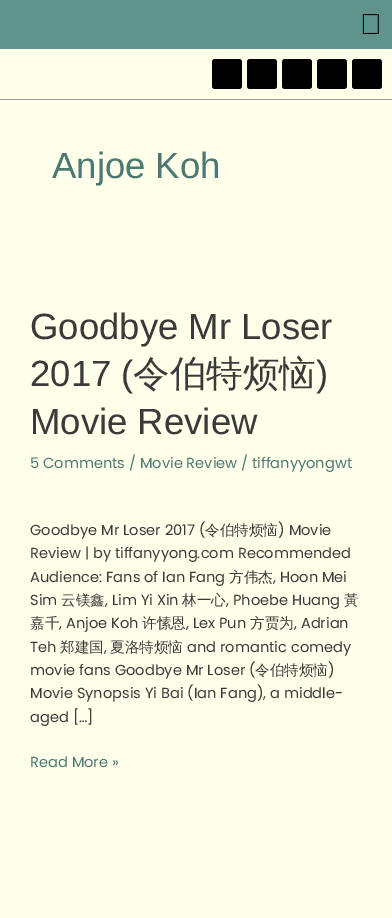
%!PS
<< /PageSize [392 918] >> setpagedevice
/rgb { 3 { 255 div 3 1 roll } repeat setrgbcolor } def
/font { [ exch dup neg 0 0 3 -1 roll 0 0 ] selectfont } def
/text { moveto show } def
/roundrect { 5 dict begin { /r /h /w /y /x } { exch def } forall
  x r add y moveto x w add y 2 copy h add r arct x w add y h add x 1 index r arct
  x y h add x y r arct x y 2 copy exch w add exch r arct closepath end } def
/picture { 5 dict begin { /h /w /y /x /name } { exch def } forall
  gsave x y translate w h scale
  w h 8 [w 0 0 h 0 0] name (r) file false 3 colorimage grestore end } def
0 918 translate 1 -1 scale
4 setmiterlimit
255 255 234 rgb
0 0 392 918 rectfill
95 148 141 rgb
0 0 392 49 rectfill
(img_01.rgb) 362 14 17 20 picture
153 153 153 rgb
0 99 392 1 rectfill
0 0 0 rgb
212 59 30 30 3 roundrect fill
247 59 30 30 3 roundrect fill
282 59 30 30 3 roundrect fill
317 59 30 30 3 roundrect fill
352 59 30 30 3 roundrect fill
/LiberationSans-Regular 36.5 font
74 121 115 rgb
(Anjoe Koh) 52 178 text
58 58 58 rgb
(Goodbye Mr Loser) 30 339 text
(2017 \() 30 386 text
/WenQuanYiZenHei-Medium 36.5 font
(令伯特烦恼) 133 386 text
/LiberationSans-Regular 36.5 font
(\)) 316 386 text
(Movie Review) 30 434 text
/Poppins-Regular 14.6 font
74 121 115 rgb
(5 Comments / Movie Review / tiffanyyongwt) 30 468 text
58 58 58 rgb
(Goodbye Mr Loser 2017 \() 30 535 text
/WenQuanYiZenHei-Medium 14.6 font
(令伯特烦恼) 205 535 text
/Poppins-Regular 14.6 font
(\) Movie) 278 535 text
(Review | by tiffanyyong.com Recommended) 30 558 text
(Audience: Fans of Ian Fang) 30 582 text
/WenQuanYiZenHei-Medium 14.6 font
(方伟杰) 229 582 text
/Poppins-Regular 14.6 font
(, Hoon Mei) 273 582 text
(Sim) 30 605 text
/WenQuanYiZenHei-Medium 14.6 font
(云镁鑫) 61 605 text
/Poppins-Regular 14.6 font
(, Lim Yi Xin) 105 605 text
/WenQuanYiZenHei-Medium 14.6 font
(林一心) 182 605 text
/Poppins-Regular 14.6 font
(, Phoebe Huang) 226 605 text
/WenQuanYiZenHei-Medium 14.6 font
(黃) 344 605 text
(嘉千) 30 628 text
/Poppins-Regular 14.6 font
(, Anjoe Koh) 59 628 text
/WenQuanYiZenHei-Medium 14.6 font
(许愫恩) 142 628 text
/Poppins-Regular 14.6 font
(, Lex Pun) 186 628 text
/WenQuanYiZenHei-Medium 14.6 font
(方贾为) 250 628 text
/Poppins-Regular 14.6 font
(, Adrian) 294 628 text
(Teh) 30 652 text
/WenQuanYiZenHei-Medium 14.6 font
(郑建国) 60 652 text
/Poppins-Regular 14.6 font
(,) 104 652 text
/WenQuanYiZenHei-Medium 14.6 font
(夏洛特烦恼) 110 652 text
/Poppins-Regular 14.6 font
(and romantic comedy) 187 652 text
(movie fans Goodbye Mr Loser \() 30 675 text
/WenQuanYiZenHei-Medium 14.6 font
(令伯特烦恼) 255 675 text
/Poppins-Regular 14.6 font
(\)) 328 675 text
(Movie Synopsis Yi Bai \(Ian Fang\), a middle-) 30 698 text
(aged […]) 30 722 text
74 121 115 rgb
(Read More ») 30 767 text
showpage
